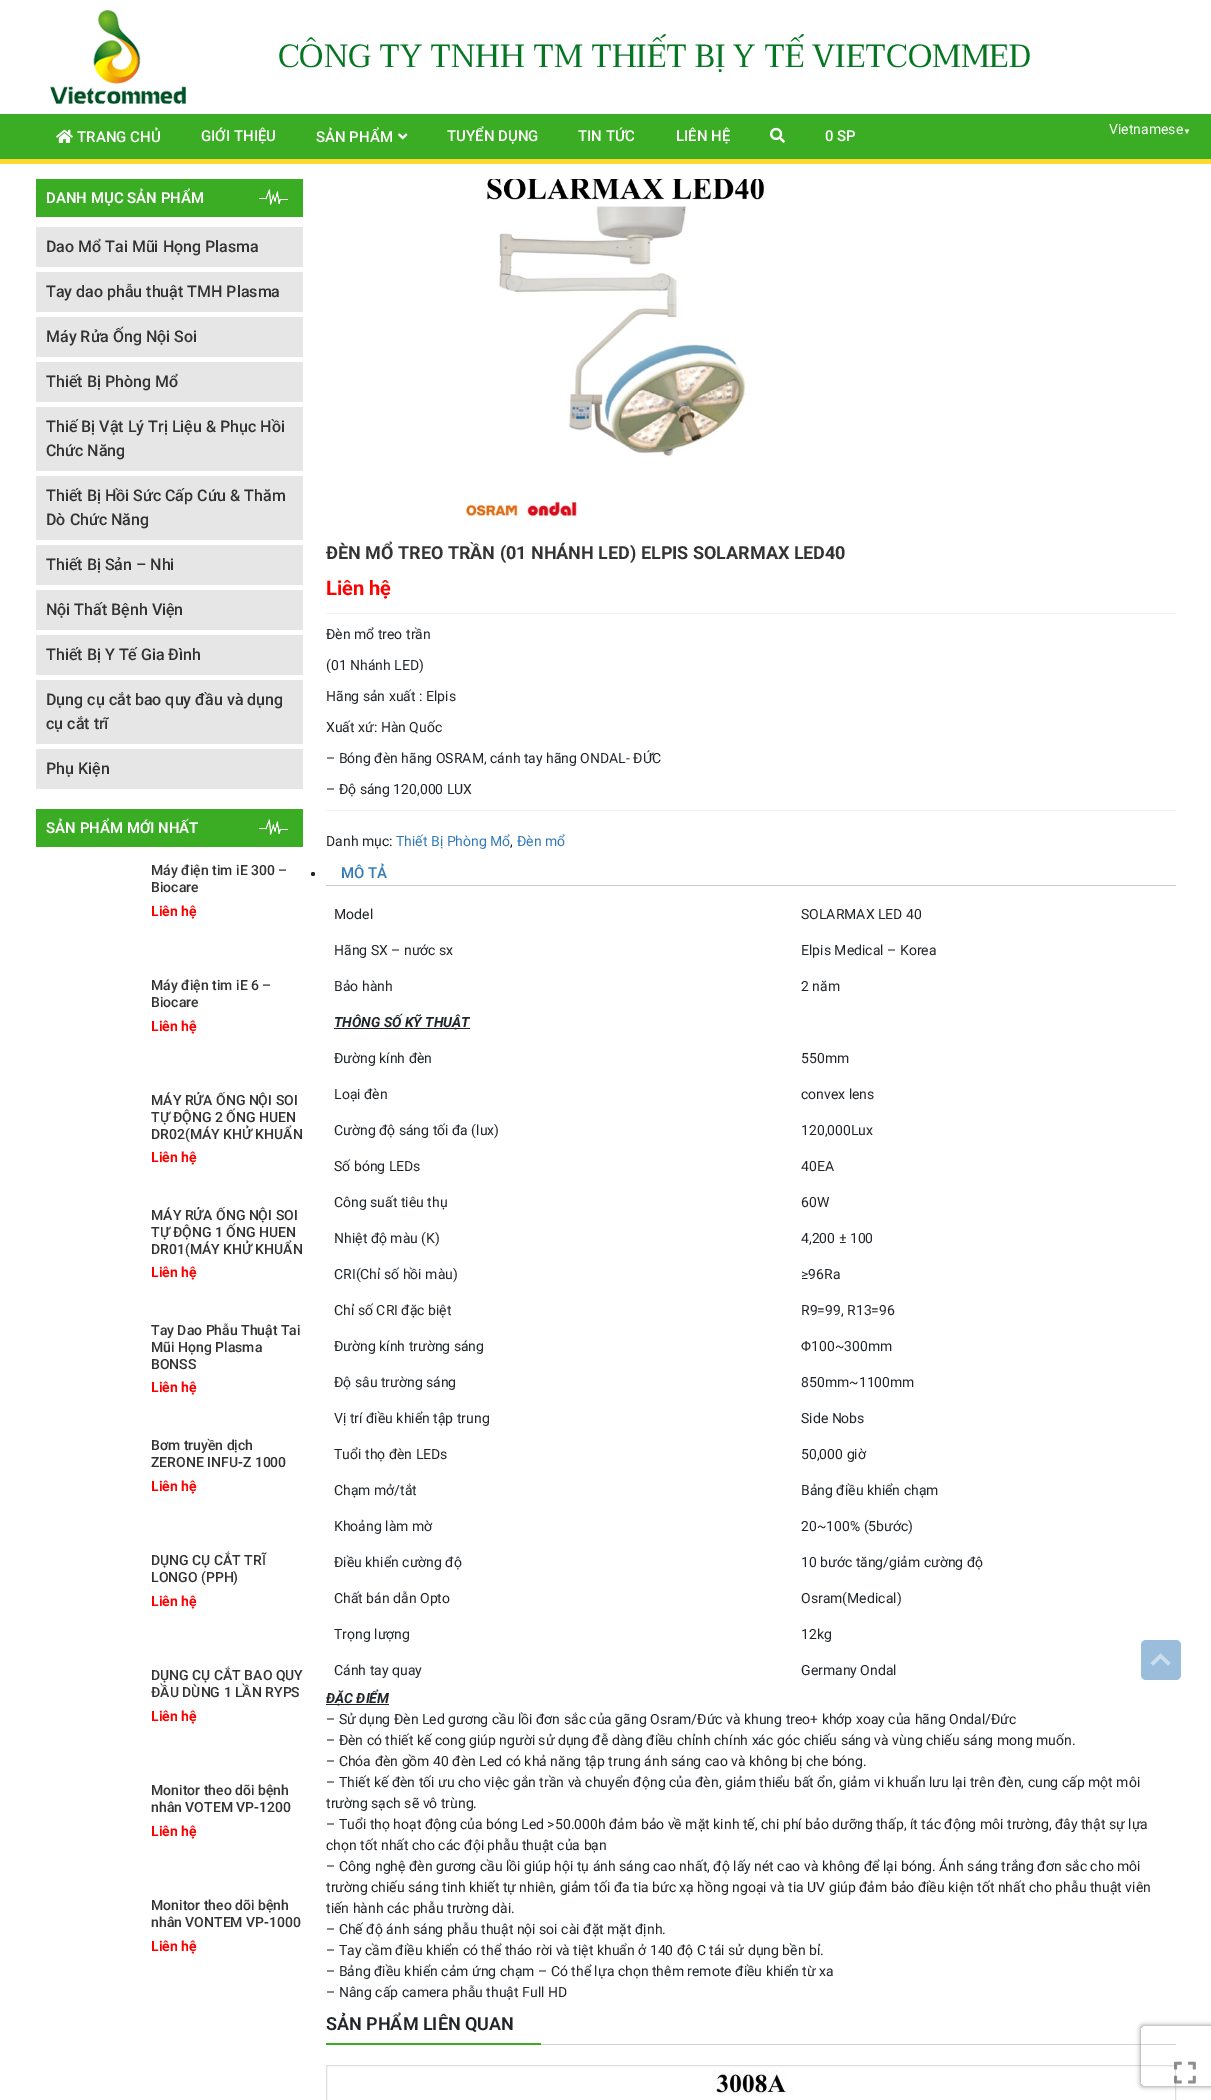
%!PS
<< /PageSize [1211 2100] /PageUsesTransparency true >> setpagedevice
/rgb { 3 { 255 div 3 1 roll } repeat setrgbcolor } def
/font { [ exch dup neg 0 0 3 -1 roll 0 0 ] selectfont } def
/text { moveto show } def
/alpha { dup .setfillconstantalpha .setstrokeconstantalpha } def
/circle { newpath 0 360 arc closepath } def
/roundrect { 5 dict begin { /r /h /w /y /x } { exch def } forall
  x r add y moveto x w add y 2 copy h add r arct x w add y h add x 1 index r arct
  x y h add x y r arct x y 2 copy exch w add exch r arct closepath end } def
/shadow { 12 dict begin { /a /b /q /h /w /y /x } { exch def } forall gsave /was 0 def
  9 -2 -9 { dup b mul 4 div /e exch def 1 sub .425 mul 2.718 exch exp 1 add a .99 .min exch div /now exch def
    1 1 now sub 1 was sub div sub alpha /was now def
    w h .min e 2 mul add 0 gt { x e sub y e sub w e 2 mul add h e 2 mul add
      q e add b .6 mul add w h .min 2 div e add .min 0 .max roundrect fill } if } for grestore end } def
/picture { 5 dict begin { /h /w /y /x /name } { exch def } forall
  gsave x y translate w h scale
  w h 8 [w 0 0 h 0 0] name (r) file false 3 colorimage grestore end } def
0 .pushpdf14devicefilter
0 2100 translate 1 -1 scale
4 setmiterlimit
255 255 255 rgb
0 0 1211 2100 rectfill
(img_01.rgb) 50 10 136 94 picture
59 173 36 rgb
0 114 1211 45 rectfill
255 216 47 rgb
0 159 1211 5 rectfill
(img_02.rgb) 56 129 17 14 picture
(img_03.rgb) 398 133 10 7 picture
(img_04.rgb) 770 127 15 16 picture
59 173 36 rgb
36 179 267 38 rectfill
(img_05.rgb) 259 189 29 16 picture
230 230 230 rgb
36 227 267 40 rectfill
36 272 267 40 rectfill
36 317 267 40 rectfill
36 362 267 40 rectfill
36 407 267 64 rectfill
36 476 267 64 rectfill
36 545 267 40 rectfill
36 590 267 40 rectfill
36 635 267 40 rectfill
36 680 267 64 rectfill
36 749 267 40 rectfill
59 173 36 rgb
36 809 267 38 rectfill
(img_05.rgb) 259 819 29 16 picture
(img_06.rgb) 465 179 300 343 picture
222 222 222 rgb
326.5 2065.5 849 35 rectstroke
210 210 210 rgb
541 2044 635 1 rectfill
gsave
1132 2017 moveto 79 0 rlineto 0 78 rlineto -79 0 rlineto closepath 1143 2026 moveto 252 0 rlineto 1 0 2 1 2 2 rcurveto 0 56 rlineto 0 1 -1 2 -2 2 rcurveto -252 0 rlineto -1 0 -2 -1 -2 -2 rcurveto 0 -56 rlineto 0 -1 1 -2 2 -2 rcurveto closepath eoclip newpath
128 128 128 rgb
1141 2026 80 60 2 2.5 1 shadow
grestore
(img_07.rgb) 1174 2061 22 23 picture
242 242 242 rgb
326 613 850 1 rectfill
326 810 850 1 rectfill
204 204 204 rgb
326 885 850 1 rectfill
33 37 41 rgb
313 874 2 circle fill
334 1028 136 1 rectfill
326 1704 63 1 rectfill
59 173 36 rgb
326 2043 215 2 rectfill
(img_08.rgb) 713 2070 80 24 picture
153 189 219 rgb
1141 1640 40 40 5 roundrect fill
(img_09.rgb) 1150 1653 21 13 picture
/Taviraj-Regular 32 font
5 119 34 rgb
(CÔNG TY TNHH TM THIẾT BỊ Y TẾ VIETCOMMED) 278 67 text
/Roboto-Medium 15 font
255 255 255 rgb
(TRANG CHỦ) 77 142 text
(GIỚI THIỆU) 201 141 text
(SẢN PHẨM) 316 142 text
(TUYỂN DỤNG) 447 141 text
(TIN TỨC) 578 141 text
(LIÊN HỆ) 676 141 text
(0 SP) 825 141 text
/Roboto-Regular 14 font
(Vietnamese) 1109 134 text
/LiberationSans-Bold 8 font
(▼) 1183 134 text
/Roboto-SemiBold 15 font
(DANH MỤC SẢN PHẨM) 46 203 text
/Roboto-Medium 16 font
51 51 51 rgb
(Dao Mổ Tai Mũi Họng Plasma) 46 252 text
(Tay dao phẫu thuật TMH Plasma) 46 297 text
(Máy Rửa Ống Nội Soi) 46 342 text
(Thiết Bị Phòng Mổ) 46 387 text
(Thiế Bị Vật Lý Trị Liệu & Phục Hồi) 46 432 text
(Chức Năng) 46 456 text
(Thiết Bị Hồi Sức Cấp Cứu & Thăm) 46 501 text
(Dò Chức Năng) 46 525 text
(Thiết Bị Sản – Nhi) 46 570 text
(Nội Thất Bệnh Viện) 46 615 text
(Thiết Bị Y Tế Gia Đình) 46 660 text
(Dụng cụ cắt bao quy đầu và dụng) 46 705 text
(cụ cắt trĩ) 46 729 text
(Phụ Kiện) 46 774 text
/Roboto-SemiBold 15 font
255 255 255 rgb
(SẢN PHẨM MỚI NHẤT) 46 833 text
/Roboto-Medium 14 font
51 51 51 rgb
(Máy điện tim iE 300 –) 151 875 text
(Biocare) 151 892 text
/Roboto-Bold 14 font
255 0 0 rgb
(Liên hệ) 151 916 text
/Roboto-Medium 14 font
51 51 51 rgb
(Máy điện tim iE 6 –) 151 990 text
(Biocare) 151 1007 text
/Roboto-Bold 14 font
255 0 0 rgb
(Liên hệ) 151 1031 text
gsave
151 1092 152 50 rectclip
/Roboto-Medium 14 font
51 51 51 rgb
(MÁY RỬA ỐNG NỘI SOI) 151 1105 text
grestore
/Roboto-Medium 14 font
51 51 51 rgb
(TỰ ĐỘNG 2 ỐNG HUEN) 151 1122 text
(DR02\(MÁY KHỬ KHUẨN) 151 1139 text
/Roboto-Bold 14 font
255 0 0 rgb
(Liên hệ) 151 1162 text
gsave
151 1207 152 50 rectclip
/Roboto-Medium 14 font
51 51 51 rgb
(MÁY RỬA ỐNG NỘI SOI) 151 1220 text
grestore
/Roboto-Medium 14 font
51 51 51 rgb
(TỰ ĐỘNG 1 ỐNG HUEN) 151 1237 text
(DR01\(MÁY KHỬ KHUẨN) 151 1254 text
/Roboto-Bold 14 font
255 0 0 rgb
(Liên hệ) 151 1277 text
/Roboto-Medium 14 font
51 51 51 rgb
(Tay Dao Phẫu Thuật Tai) 151 1335 text
(Mũi Họng Plasma) 151 1352 text
(BONSS) 151 1369 text
/Roboto-Bold 14 font
255 0 0 rgb
(Liên hệ) 151 1392 text
/Roboto-Medium 14 font
51 51 51 rgb
(Bơm truyền dịch) 151 1450 text
(ZERONE INFU-Z 1000) 151 1467 text
/Roboto-Bold 14 font
255 0 0 rgb
(Liên hệ) 151 1491 text
/Roboto-Medium 14 font
51 51 51 rgb
(DỤNG CỤ CẮT TRĨ) 151 1565 text
(LONGO \(PPH\)) 151 1582 text
/Roboto-Bold 14 font
255 0 0 rgb
(Liên hệ) 151 1606 text
/Roboto-Medium 14 font
51 51 51 rgb
(DỤNG CỤ CẮT BAO QUY) 151 1680 text
(ĐẦU DÙNG 1 LẦN RYPS) 151 1697 text
/Roboto-Bold 14 font
255 0 0 rgb
(Liên hệ) 151 1721 text
/Roboto-Medium 14 font
51 51 51 rgb
(Monitor theo dõi bệnh) 151 1795 text
(nhân VOTEM VP-1200) 151 1812 text
/Roboto-Bold 14 font
255 0 0 rgb
(Liên hệ) 151 1836 text
/Roboto-Medium 14 font
51 51 51 rgb
(Monitor theo dõi bệnh) 151 1910 text
(nhân VONTEM VP-1000) 151 1927 text
/Roboto-Bold 14 font
255 0 0 rgb
(Liên hệ) 151 1951 text
/Roboto-Bold 18 font
51 51 51 rgb
(ĐÈN MỔ TREO TRẦN \(01 NHÁNH LED\) ELPIS SOLARMAX LED40) 326 559 text
/Roboto-Bold 20 font
255 0 0 rgb
(Liên hệ) 326 595 text
/Roboto-Regular 14 font
33 37 41 rgb
(Đèn mổ treo trần) 326 639 text
(\(01 Nhánh LED\)) 326 670 text
(Hãng sản xuất : Elpis) 326 701 text
(Xuất xứ: Hàn Quốc) 326 732 text
(– Bóng đèn hãng OSRAM, cánh tay hãng ONDAL- ĐỨC) 326 763 text
(– Độ sáng 120,000 LUX) 326 794 text
(Danh mục:) 326 846 text
51 122 183 rgb
(Thiết Bị Phòng Mổ) 396 846 text
33 37 41 rgb
(,) 510 846 text
51 122 183 rgb
(Đèn mổ) 517 846 text
/Roboto-Medium 15 font
(MÔ TẢ) 341 878 text
/Roboto-Regular 14 font
33 37 41 rgb
(Model) 334 919 text
(SOLARMAX LED 40) 801 919 text
(Hãng SX – nước sx) 334 955 text
(Elpis Medical – Korea) 801 955 text
(Bảo hành) 334 991 text
(2 năm) 801 991 text
/Roboto-BoldItalic 14 font
(THÔNG SỐ KỸ THUẬT) 334 1027 text
/Roboto-Regular 14 font
(Đường kính đèn) 334 1063 text
(550mm) 801 1063 text
(Loại đèn) 334 1099 text
(convex lens) 801 1099 text
(Cường độ sáng tối đa \(lux\)) 334 1135 text
(120,000Lux) 801 1135 text
(Số bóng LEDs) 334 1171 text
(40EA) 801 1171 text
(Công suất tiêu thụ) 334 1207 text
(60W) 801 1207 text
(Nhiệt độ màu \(K\)) 334 1243 text
(4,200 ± 100) 801 1243 text
(CRI\(Chỉ số hồi màu\)) 334 1279 text
(≥96Ra) 801 1279 text
(Chỉ số CRI đặc biệt) 334 1315 text
(R9=99, R13=96) 801 1315 text
(Đường kính trường sáng) 334 1351 text
(Φ100~300mm) 801 1351 text
(Độ sâu trường sáng) 334 1387 text
(850mm~1100mm) 801 1387 text
(Vị trí điều khiển tập trung) 334 1423 text
(Side Nobs) 801 1423 text
(Tuổi thọ đèn LEDs) 334 1459 text
(50,000 giờ) 801 1459 text
(Chạm mở/tắt) 334 1495 text
(Bảng điều khiển chạm) 801 1495 text
(Khoảng làm mờ) 334 1531 text
(20~100% \(5bước\)) 801 1531 text
(Điều khiển cường độ) 334 1567 text
(10 bước tăng/giảm cường độ) 801 1567 text
(Chất bán dẫn Opto) 334 1603 text
(Osram\(Medical\)) 801 1603 text
(Trọng lượng) 334 1639 text
(12kg) 801 1639 text
(Cánh tay quay) 334 1675 text
(Germany Ondal) 801 1675 text
/Roboto-BoldItalic 14 font
(ĐẶC ĐIỂM) 326 1703 text
/Roboto-Regular 14 font
(– Sử dụng Đèn Led gương cầu lồi đơn sắc của gãng Osram/Đức và khung treo+ khớp xoay của hãng Ondal/Đức) 326 1724 text
(– Đèn có thiết kế cong giúp người sử dụng đễ dàng điều chỉnh chính xác góc chiếu sáng và vùng chiếu sáng mong muốn.) 326 1745 text
(– Chóa đèn gồm 40 đèn Led có khả năng tập trung ánh sáng cao và không bị che bóng.) 326 1766 text
(– Thiết kế đèn tối ưu cho việc gắn trần và chuyển động của đèn, giảm thiểu bất ổn, giảm vi khuẩn lưu lại trên đèn, cung cấp một môi) 326 1787 text
(trường sạch sẽ vô trùng.) 326 1808 text
(– Tuổi thọ hoạt động của bóng Led >50.000h đảm bảo về mặt kinh tế, chi phí bảo dưỡng thấp, ít tác động môi trường, đây thật sự lựa) 326 1829 text
(chọn tốt nhất cho các đội phẫu thuật của bạn) 326 1850 text
(– Công nghệ đèn gương cầu lồi giúp hội tụ ánh sáng cao nhất, độ lấy nét cao và không để lại bóng. Ánh sáng trắng đơn sắc cho môi) 326 1871 text
(trường chiếu sáng tinh khiết tự nhiên, giảm tối đa tia bức xạ hồng ngoại và tia UV giúp đảm bảo điều kiện tốt nhất cho phẫu thuật viên) 326 1892 text
(tiến hành các phẫu trường dài.) 326 1913 text
(– Chế độ ánh sáng phẫu thuật nội soi cài đặt mặt định.) 326 1934 text
(– Tay cầm điều khiển có thể tháo rời và tiệt khuẩn ở 140 độ C tái sử dụng bền bỉ.) 326 1955 text
(– Bảng điều khiển cảm ứng chạm – Có thể lựa chọn thêm remote điều khiển từ xa) 326 1976 text
(– Nâng cấp camera phẫu thuật Full HD) 326 1997 text
/Roboto-SemiBold 18 font
(SẢN PHẨM LIÊN QUAN) 326 2030 text
.poppdf14devicefilter showpage
